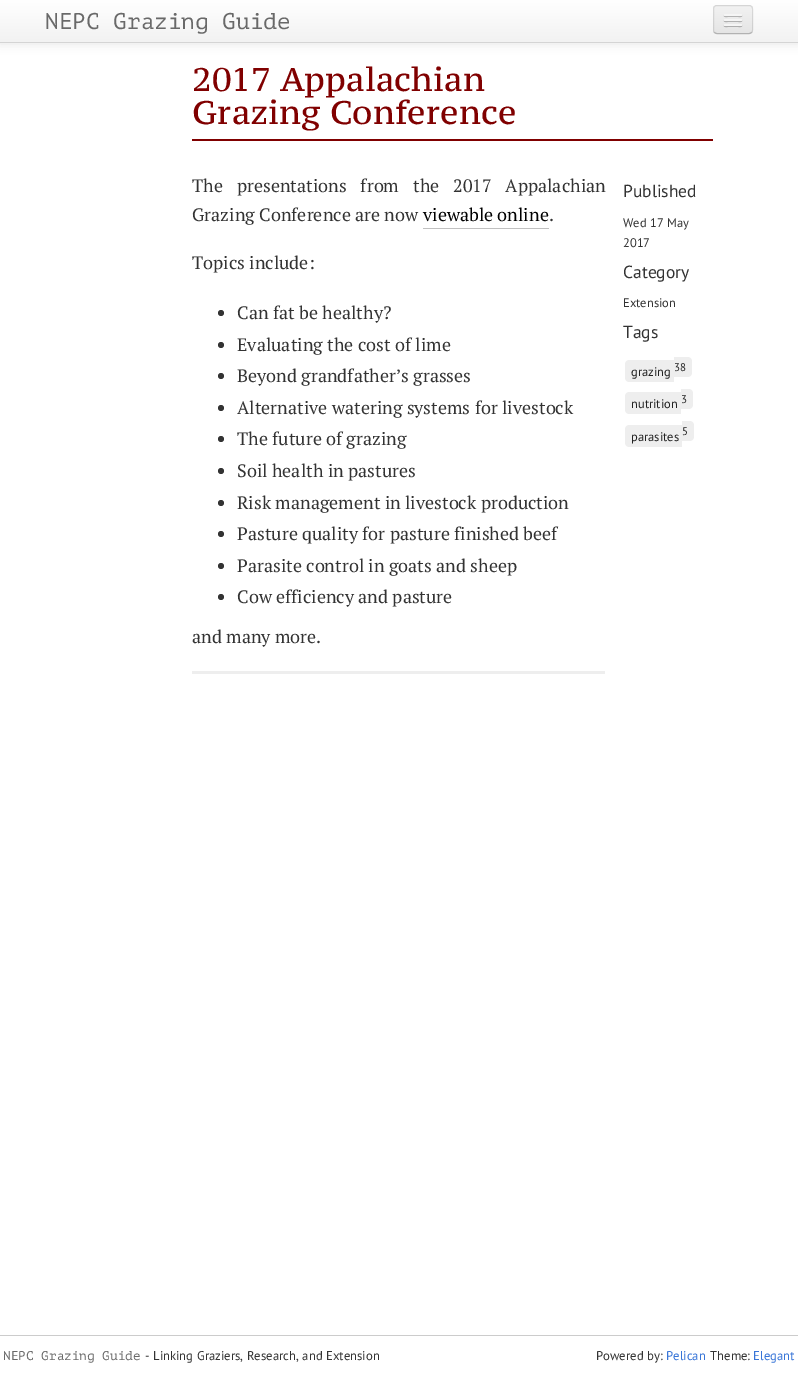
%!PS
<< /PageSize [798 1376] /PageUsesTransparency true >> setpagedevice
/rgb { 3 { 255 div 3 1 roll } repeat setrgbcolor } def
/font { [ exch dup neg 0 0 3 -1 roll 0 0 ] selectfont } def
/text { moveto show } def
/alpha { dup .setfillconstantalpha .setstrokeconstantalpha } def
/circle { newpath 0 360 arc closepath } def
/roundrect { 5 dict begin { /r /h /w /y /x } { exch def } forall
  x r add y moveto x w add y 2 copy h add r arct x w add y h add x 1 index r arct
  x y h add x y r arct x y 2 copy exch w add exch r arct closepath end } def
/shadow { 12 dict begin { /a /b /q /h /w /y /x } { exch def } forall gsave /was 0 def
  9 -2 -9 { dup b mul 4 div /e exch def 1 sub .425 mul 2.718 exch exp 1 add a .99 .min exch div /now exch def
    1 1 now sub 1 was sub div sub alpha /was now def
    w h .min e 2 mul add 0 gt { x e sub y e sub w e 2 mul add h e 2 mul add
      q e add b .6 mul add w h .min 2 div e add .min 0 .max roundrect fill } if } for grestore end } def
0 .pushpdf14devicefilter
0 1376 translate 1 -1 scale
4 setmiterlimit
255 255 255 rgb
0 0 798 1376 rectfill
0 0 0 rgb
0 1 798 43 0 5 0.1 shadow
gsave 0 0 moveto 798 0 rlineto 0 42 rlineto -798 0 rlineto closepath clip newpath
<< /ShadingType 2 /ColorSpace /DeviceRGB /Coords [399 0 399 42] /Extend [true true] /Function << /FunctionType 2 /Domain [0 1] /C0 [1 1 1] /C1 [0.949 0.949 0.949] /N 1 >> >> shfill grestore
212 212 212 rgb
0 42 798 1 rectfill
237 237 237 rgb
713 5 40 29 4 roundrect fill
gsave
713 5 40 29 4 roundrect clip newpath
gsave 713 6 moveto 40 0 rlineto 0 27 rlineto -40 0 rlineto closepath clip newpath
<< /ShadingType 2 /ColorSpace /DeviceRGB /Coords [733 6 733 33] /Extend [true true] /Function << /FunctionType 2 /Domain [0 1] /C0 [0.949 0.949 0.949] /C1 [0.898 0.898 0.898] /N 1 >> >> shfill grestore
grestore
0.25 alpha
0 0 0 rgb
751.5 32.5 moveto -0.5 0.5 -1.5 1 -2.5 1 rcurveto -32 0 rlineto -1 0 -2 -0.5 -2.5 -1 rcurveto stroke
0.1 alpha
714.5 32.5 moveto -0.5 -0.5 -1 -1.5 -1 -2.5 rcurveto 0 -21 rlineto 0 -1 0.5 -2 1 -2.5 rcurveto 0.5 -0.5 1.5 -1 2.5 -1 rcurveto 32 0 rlineto 1 0 2 0.5 2.5 1 rcurveto 0.5 0.5 1 1.5 1 2.5 rcurveto 0 21 rlineto 0 1 -0.5 2 -1 2.5 rcurveto stroke
1 alpha
178 178 178 rgb
724 15.5 moveto -1 2 3.5 1.5 3.5 1.5 rcurveto 11 0 rlineto 0 0 4.5 0.5 3.5 -1.5 rcurveto -1 1 -7.5 0.5 -9 0.5 rcurveto -1.5 0 -8 0.5 -9 -0.5 rcurveto closepath fill
245 245 245 rgb
724 14 18 2 1 roundrect fill
176 176 176 rgb
724 20.5 moveto -1 2 3.5 1.5 3.5 1.5 rcurveto 11 0 rlineto 0 0 4.5 0.5 3.5 -1.5 rcurveto -1 1 -7.5 0.5 -9 0.5 rcurveto -1.5 0 -8 0.5 -9 -0.5 rcurveto closepath fill
245 245 245 rgb
724 19 18 2 1 roundrect fill
174 174 174 rgb
724 25.5 moveto -1 2 3.5 1.5 3.5 1.5 rcurveto 11 0 rlineto 0 0 4.5 0.5 3.5 -1.5 rcurveto -1 1 -7.5 0.5 -9 0.5 rcurveto -1.5 0 -8 0.5 -9 -0.5 rcurveto closepath fill
245 245 245 rgb
724 24 18 2 1 roundrect fill
128 0 0 rgb
192 139 521 2 rectfill
192 192 192 rgb
423 228 126 1 rectfill
51 51 51 rgb
221 313 3 circle fill
221 345 3 circle fill
221 376 3 circle fill
221 408 3 circle fill
221 439 3 circle fill
221 471 3 circle fill
221 503 3 circle fill
221 534 3 circle fill
221 566 3 circle fill
221 597 3 circle fill
238 238 238 rgb
192 671 413 3 rectfill
629 360 moveto 45 0 rlineto 0 22 rlineto -45 0 rlineto -2 0 -4 -2 -4 -4 rcurveto 0 -14 rlineto 0 -2 2 -4 4 -4 rcurveto closepath fill
674 357 moveto 14 0 rlineto 2 0 4 2 4 4 rcurveto 0 12 rlineto 0 2 -2 4 -4 4 rcurveto -14 0 rlineto closepath fill
629 392 moveto 52 0 rlineto 0 22 rlineto -52 0 rlineto -2 0 -4 -2 -4 -4 rcurveto 0 -14 rlineto 0 -2 2 -4 4 -4 rcurveto closepath fill
681 389 moveto 8 0 rlineto 2 0 4 2 4 4 rcurveto 0 12 rlineto 0 2 -2 4 -4 4 rcurveto -8 0 rlineto closepath fill
629 425 moveto 53 0 rlineto 0 22 rlineto -53 0 rlineto -2 0 -4 -2 -4 -4 rcurveto 0 -14 rlineto 0 -2 2 -4 4 -4 rcurveto closepath fill
682 421 moveto 8 0 rlineto 2 0 4 2 4 4 rcurveto 0 12 rlineto 0 2 -2 4 -4 4 rcurveto -8 0 rlineto closepath fill
204 204 204 rgb
0 1335 798 1 rectfill
/PTMono-Regular 22.75 font
105 105 105 rgb
(NEPC Grazing Guide) 45 29 text
/PTSerifCaption-Regular 32.75 font
128 0 0 rgb
(2017 Appalachian) 192 91 text
(Grazing Conference) 192 124 text
/PTSerif-Regular 18 font
51 51 51 rgb
192 192 moveto 9.5 0 32 (The presentations from the 2017 Appalachian) widthshow
(Grazing Conference are now) 192 221 text
0 0 0 rgb
(viewable online) 423 221 text
51 51 51 rgb
(.) 549 221 text
(Topics include:) 192 269 text
(Can fat be healthy?) 237 319 text
(Evaluating the cost of lime) 237 351 text
(Beyond grandfather’s grasses) 237 382 text
(Alternative watering systems for livestock) 237 414 text
(The future of grazing) 237 445 text
(Soil health in pastures) 237 477 text
(Risk management in livestock production) 237 509 text
(Pasture quality for pasture finished beef) 237 540 text
(Parasite control in goats and sheep) 237 572 text
(Cow efficiency and pasture) 237 603 text
(and many more.) 192 643 text
/PTSans-Regular 17.5 font
(Published) 623 197 text
/PTSans-Regular 12.5 font
(Wed 17 May) 623 227 text
(2017) 623 247 text
/PTSans-Regular 17.5 font
(Category) 623 278 text
/PTSans-Regular 12.5 font
(Extension) 623 307 text
/PTSans-Regular 17.5 font
(Tags) 623 338 text
/PTSans-Regular 12.5 font
34 34 34 rgb
(grazing) 631 376 text
/PTSans-Regular 11 font
(38) 674 371 text
/PTSans-Regular 12.5 font
(nutrition) 631 408 text
/PTSans-Regular 11 font
(3) 681 403 text
/PTSans-Regular 12.5 font
(parasites) 631 441 text
/PTSans-Regular 11 font
(5) 682 435 text
/PTMono-Regular 12.75 font
105 105 105 rgb
(NEPC Grazing Guide) 3 1360 text
/PTSans-Regular 12.75 font
51 51 51 rgb
(- Linking Graziers, Research, and Extension) 145 1360 text
(Powered by:) 596 1360 text
56 117 215 rgb
(Pelican) 666 1360 text
51 51 51 rgb
(Theme:) 710 1360 text
56 117 215 rgb
(Elegant) 753 1360 text
.poppdf14devicefilter showpage
